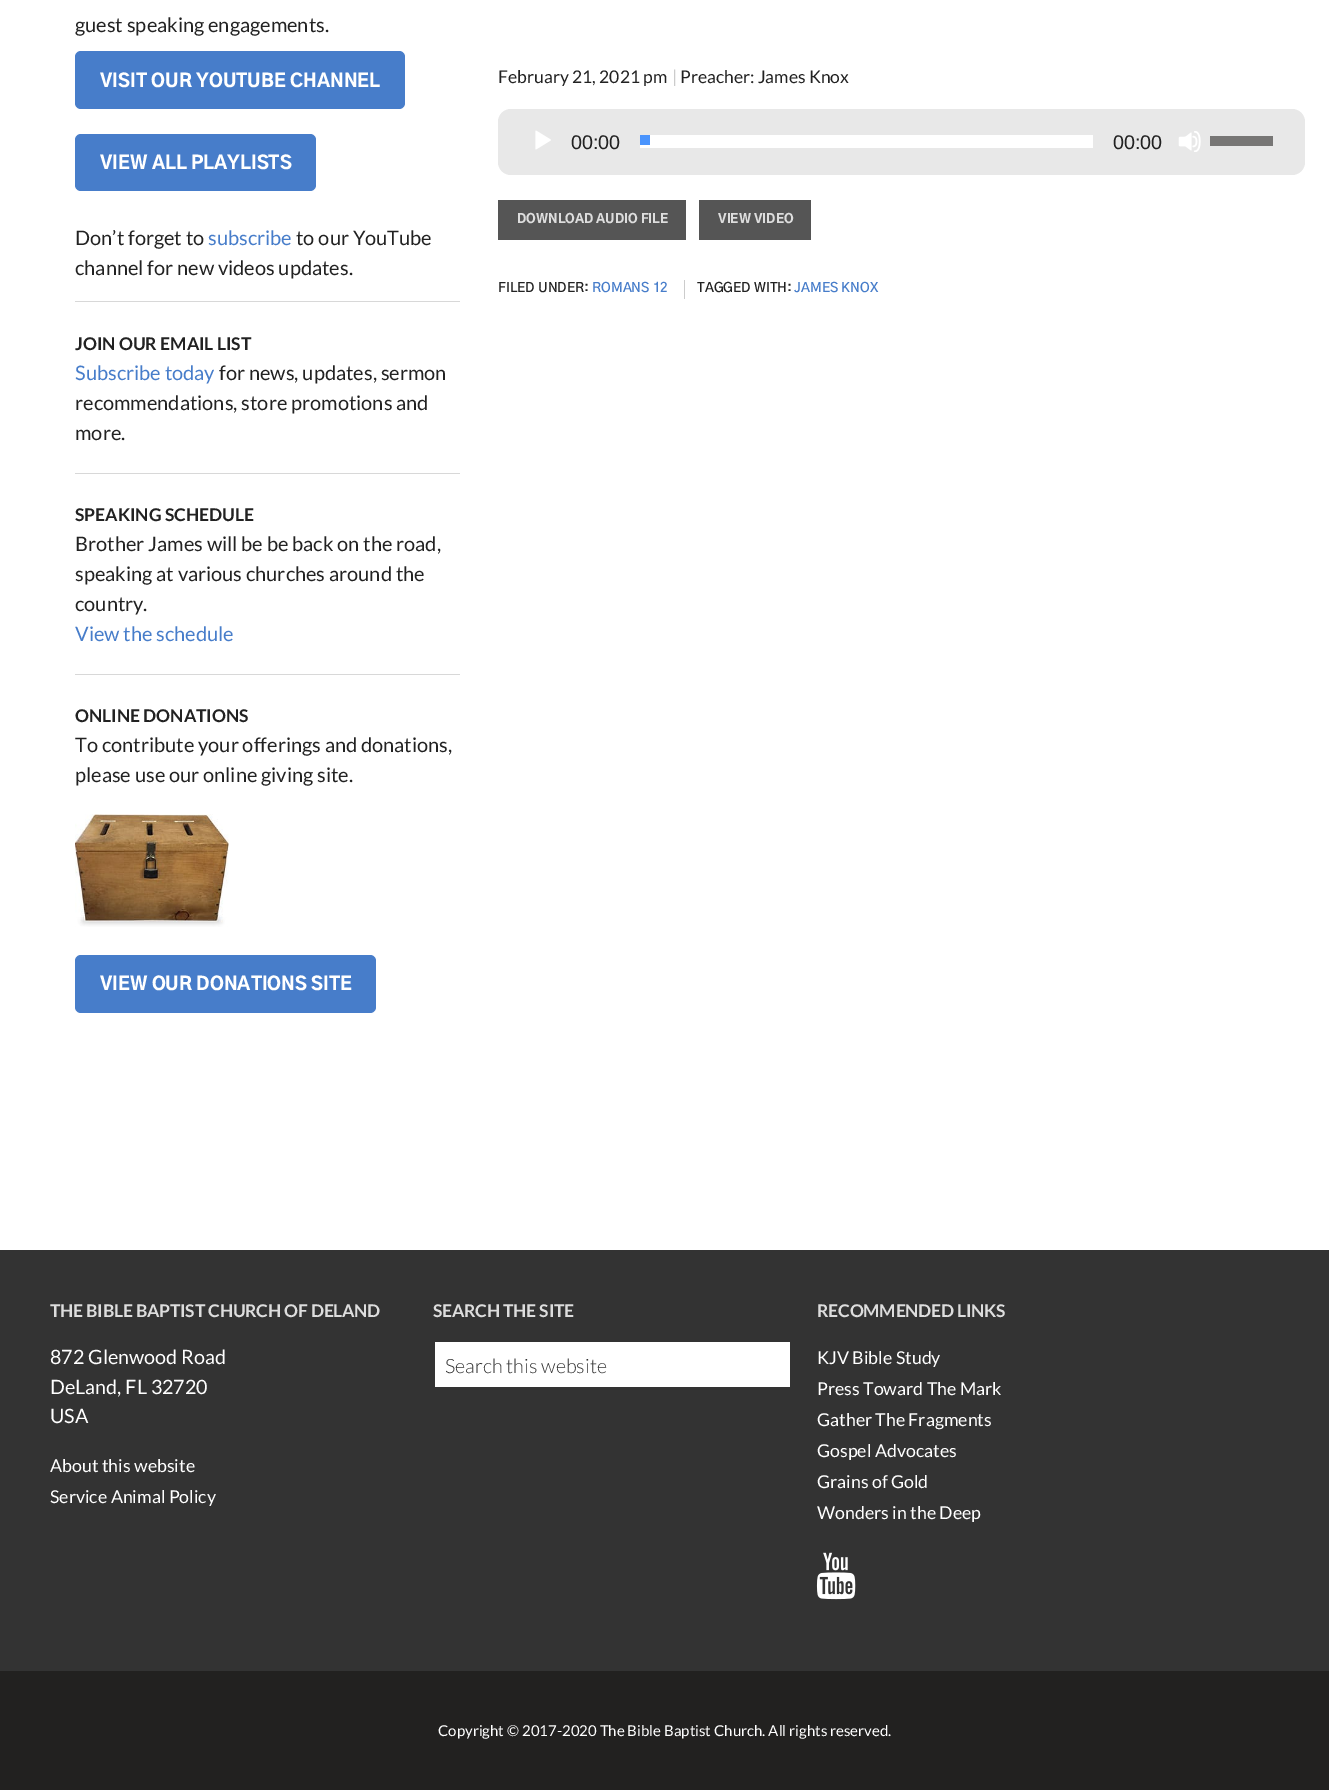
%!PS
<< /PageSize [1329 1790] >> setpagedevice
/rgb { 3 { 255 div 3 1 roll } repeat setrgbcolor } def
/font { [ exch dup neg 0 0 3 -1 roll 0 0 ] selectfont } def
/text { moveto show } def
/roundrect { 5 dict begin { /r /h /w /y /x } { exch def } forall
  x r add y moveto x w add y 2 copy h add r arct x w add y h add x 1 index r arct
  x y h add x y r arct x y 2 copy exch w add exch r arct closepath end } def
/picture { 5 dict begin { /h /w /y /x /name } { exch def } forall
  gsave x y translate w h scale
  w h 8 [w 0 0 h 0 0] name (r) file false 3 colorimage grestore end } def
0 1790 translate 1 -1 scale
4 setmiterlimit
255 255 255 rgb
0 0 1329 1790 rectfill
71 125 202 rgb
75 51 330 58 6 roundrect fill
75 134 241 57 6 roundrect fill
216 216 216 rgb
75 301 385 1 rectfill
75 473 385 1 rectfill
75 674 385 1 rectfill
(img_01.rgb) 75 814 154 113 picture
71 125 202 rgb
75 955 301 58 6 roundrect fill
232 232 232 rgb
498 109 807 66 13 roundrect fill
(img_02.rgb) 535 130 16 20 picture
255 255 255 rgb
640 135 453 13 rectfill
74 148 253 rgb
640 135 10 10 rectfill
(img_03.rgb) 1178 131 23 21 picture
119 118 117 rgb
1210 136 63 10 rectfill
85 85 85 rgb
498 200 188 40 rectfill
699 200 112 40 rectfill
204 204 204 rgb
684 280 1 19 rectfill
51 51 51 rgb
0 1250 1329 421 rectfill
255 255 255 rgb
435 1342 355 45 rectfill
(img_04.rgb) 816 1552 40 48 picture
34 33 32 rgb
0 1671 1329 119 rectfill
/Lato-Regular 20 font
34 34 34 rgb
(guest speaking engagements.) 75 32 text
/GothicA1-Black 18 font
255 255 255 rgb
(VISIT OUR YOUTUBE CHANNEL) 100 87 text
(VIEW ALL PLAYLISTS) 100 169 text
/Lato-Regular 20 font
34 34 34 rgb
(Don’t forget to) 75 245 text
71 125 202 rgb
(subscribe) 208 245 text
34 34 34 rgb
(to our YouTube) 296 245 text
(channel for new videos updates.) 75 275 text
/Lato-Bold 17.5 font
(JOIN OUR EMAIL LIST) 75 350 text
/Lato-Regular 20 font
71 125 202 rgb
(Subscribe today) 75 380 text
34 34 34 rgb
(for news, updates, sermon) 219 380 text
(recommendations, store promotions and) 75 410 text
(more.) 75 440 text
/Lato-Bold 17.5 font
(SPEAKING SCHEDULE) 75 521 text
/Lato-Regular 20 font
(Brother James will be be back on the road,) 75 551 text
(speaking at various churches around the) 75 581 text
(country.) 75 611 text
71 125 202 rgb
(View the schedule) 75 641 text
/Lato-Bold 17.5 font
34 34 34 rgb
(ONLINE DONATIONS) 75 722 text
/Lato-Regular 20 font
(To contribute your offerings and donations,) 75 752 text
(please use our online giving site.) 75 782 text
/GothicA1-Black 18 font
255 255 255 rgb
(VIEW OUR DONATIONS SITE) 100 990 text
/Lato-Regular 17.5 font
34 34 34 rgb
(February 21, 2021 pm) 498 83 text
204 204 204 rgb
(|) 672 83 text
34 34 34 rgb
(Preacher: James Knox) 680 83 text
/LiberationSans-Regular 19.75 font
(00:00) 571 149 text
(00:00) 1113 149 text
/GothicA1-Black 12.5 font
221 221 221 rgb
(DOWNLOAD AUDIO FILE) 517 223 text
(VIEW VIDEO) 718 223 text
/GothicA1-SemiBold 13.25 font
34 34 34 rgb
(FILED UNDER:) 498 292 text
71 125 202 rgb
(ROMANS 12) 592 292 text
34 34 34 rgb
(TAGGED WITH:) 697 292 text
71 125 202 rgb
(JAMES KNOX) 794 292 text
/Lato-Bold 17.5 font
221 221 221 rgb
50 1317 moveto -0.2 0 (THE BIBLE BAPTIST CHURCH OF DELAND) ashow
/Lato-Regular 19.75 font
255 255 255 rgb
(872 Glenwood Road) 50 1364 text
(DeLand, FL 32720) 50 1394 text
(USA) 50 1423 text
/Lato-Regular 17.75 font
(About this website) 50 1472 text
(Service Animal Policy) 50 1503 text
/Lato-Bold 17.5 font
221 221 221 rgb
433 1317 moveto -0.2 0 (SEARCH THE SITE) ashow
/Lato-Light 19.75 font
51 51 51 rgb
(Search this website) 445 1373 text
/Lato-Bold 17.5 font
221 221 221 rgb
817 1317 moveto -0.2 0 (RECOMMENDED LINKS) ashow
/Lato-Regular 17.75 font
255 255 255 rgb
(KJV Bible Study) 817 1364 text
(Press Toward The Mark) 817 1395 text
(Gather The Fragments) 817 1426 text
(Gospel Advocates) 817 1457 text
(Grains of Gold) 817 1488 text
(Wonders in the Deep) 817 1519 text
/Lato-Regular 15 font
(Copyright © 2017-2020 The Bible Baptist Church. All rights reserved.) 438 1736 text
showpage
